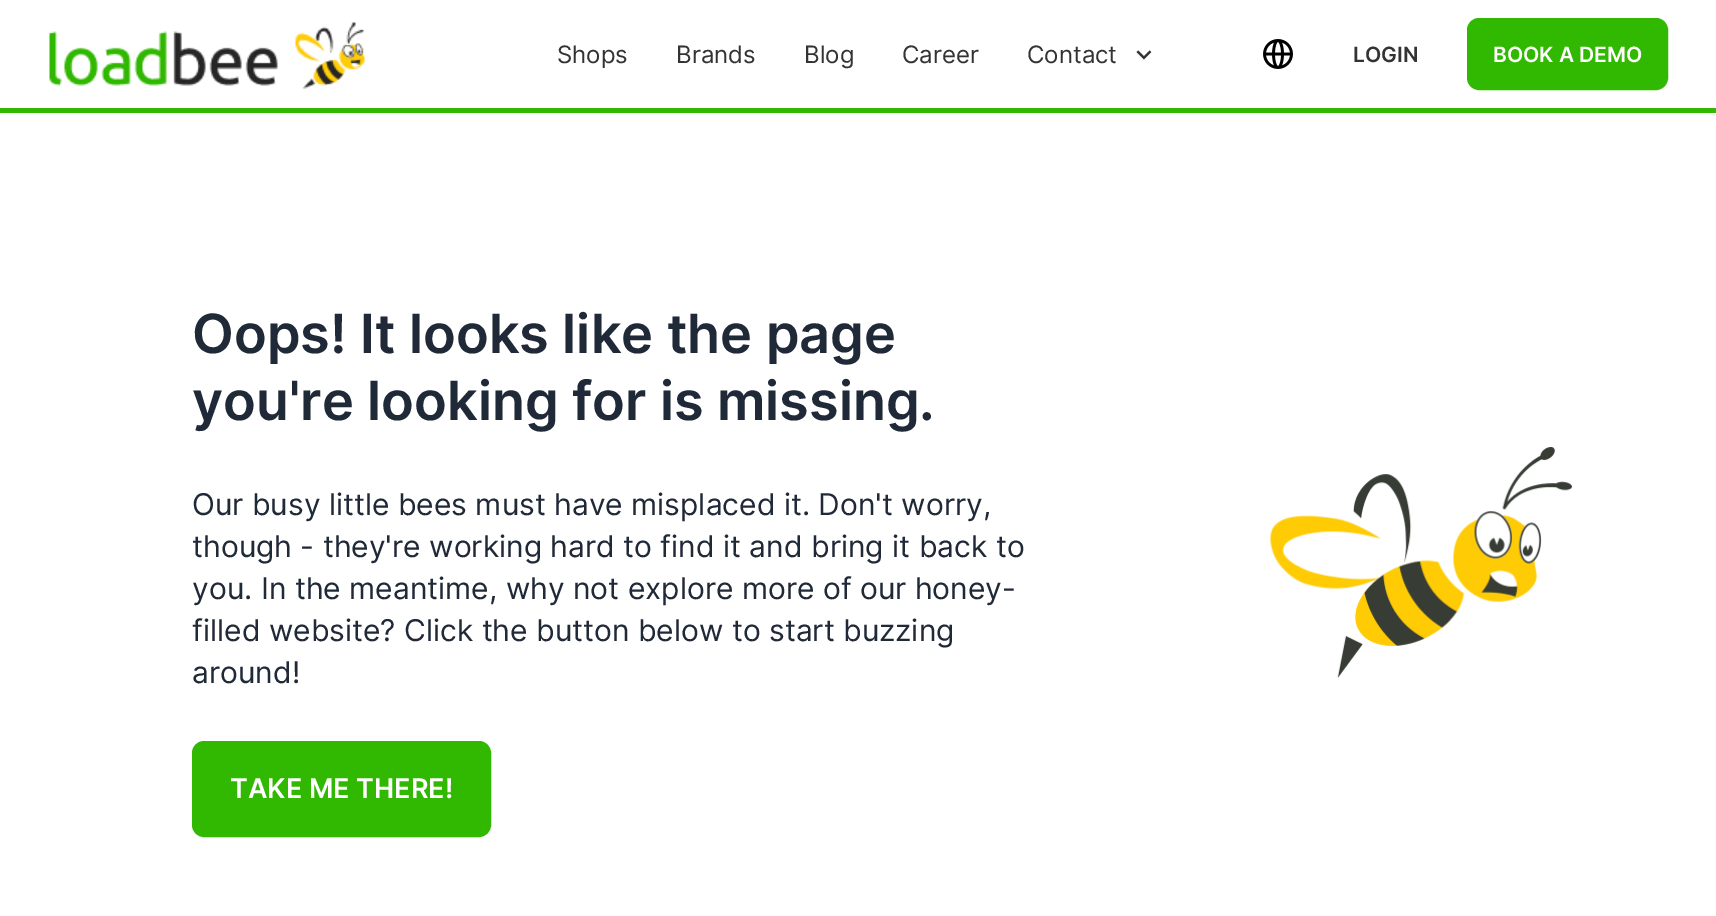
%!PS
<< /PageSize [1716 916] >> setpagedevice
/rgb { 3 { 255 div 3 1 roll } repeat setrgbcolor } def
/font { [ exch dup neg 0 0 3 -1 roll 0 0 ] selectfont } def
/text { moveto show } def
/roundrect { 5 dict begin { /r /h /w /y /x } { exch def } forall
  x r add y moveto x w add y 2 copy h add r arct x w add y h add x 1 index r arct
  x y h add x y r arct x y 2 copy exch w add exch r arct closepath end } def
/picture { 5 dict begin { /h /w /y /x /name } { exch def } forall
  gsave x y translate w h scale
  w h 8 [w 0 0 h 0 0] name (r) file false 3 colorimage grestore end } def
0 916 translate 1 -1 scale
4 setmiterlimit
255 255 255 rgb
0 0 1716 916 rectfill
49 184 0 rgb
0 108 1716 5 rectfill
(img_01.rgb) 49 22 316 67 picture
(img_02.rgb) 1136 50 16 10 picture
(img_03.rgb) 1263 39 30 30 picture
1468 19 199 70 11 roundrect gsave fill grestore
2 setlinewidth
stroke
193 742 297 94 11 roundrect gsave fill grestore
stroke
(img_04.rgb) 1270 447 302 231 picture
/Inter-Regular 24 font
51 51 51 rgb
(Shops) 557 63 text
(Brands) 676 63 text
(Blog) 804 63 text
(Career) 902 63 text
(Contact) 1027 63 text
/Inter-SemiBold 21 font
(LOGIN) 1353 62 text
255 255 255 rgb
(BOOK A DEMO) 1493 62 text
/Inter-SemiBold 54 font
31 41 55 rgb
(Oops! It looks like the page) 192 353 text
(you're looking for is missing.) 192 420 text
/Inter-Regular 30 font
(Our busy little bees must have misplaced it. Don't worry,) 192 515 text
(though - they're working hard to find it and bring it back to) 192 557 text
(you. In the meantime, why not explore more of our honey-) 192 599 text
(filled website? Click the button below to start buzzing) 192 641 text
(around!) 192 683 text
/Inter-SemiBold 27 font
255 255 255 rgb
(TAKE ME THERE!) 230 798 text
showpage
